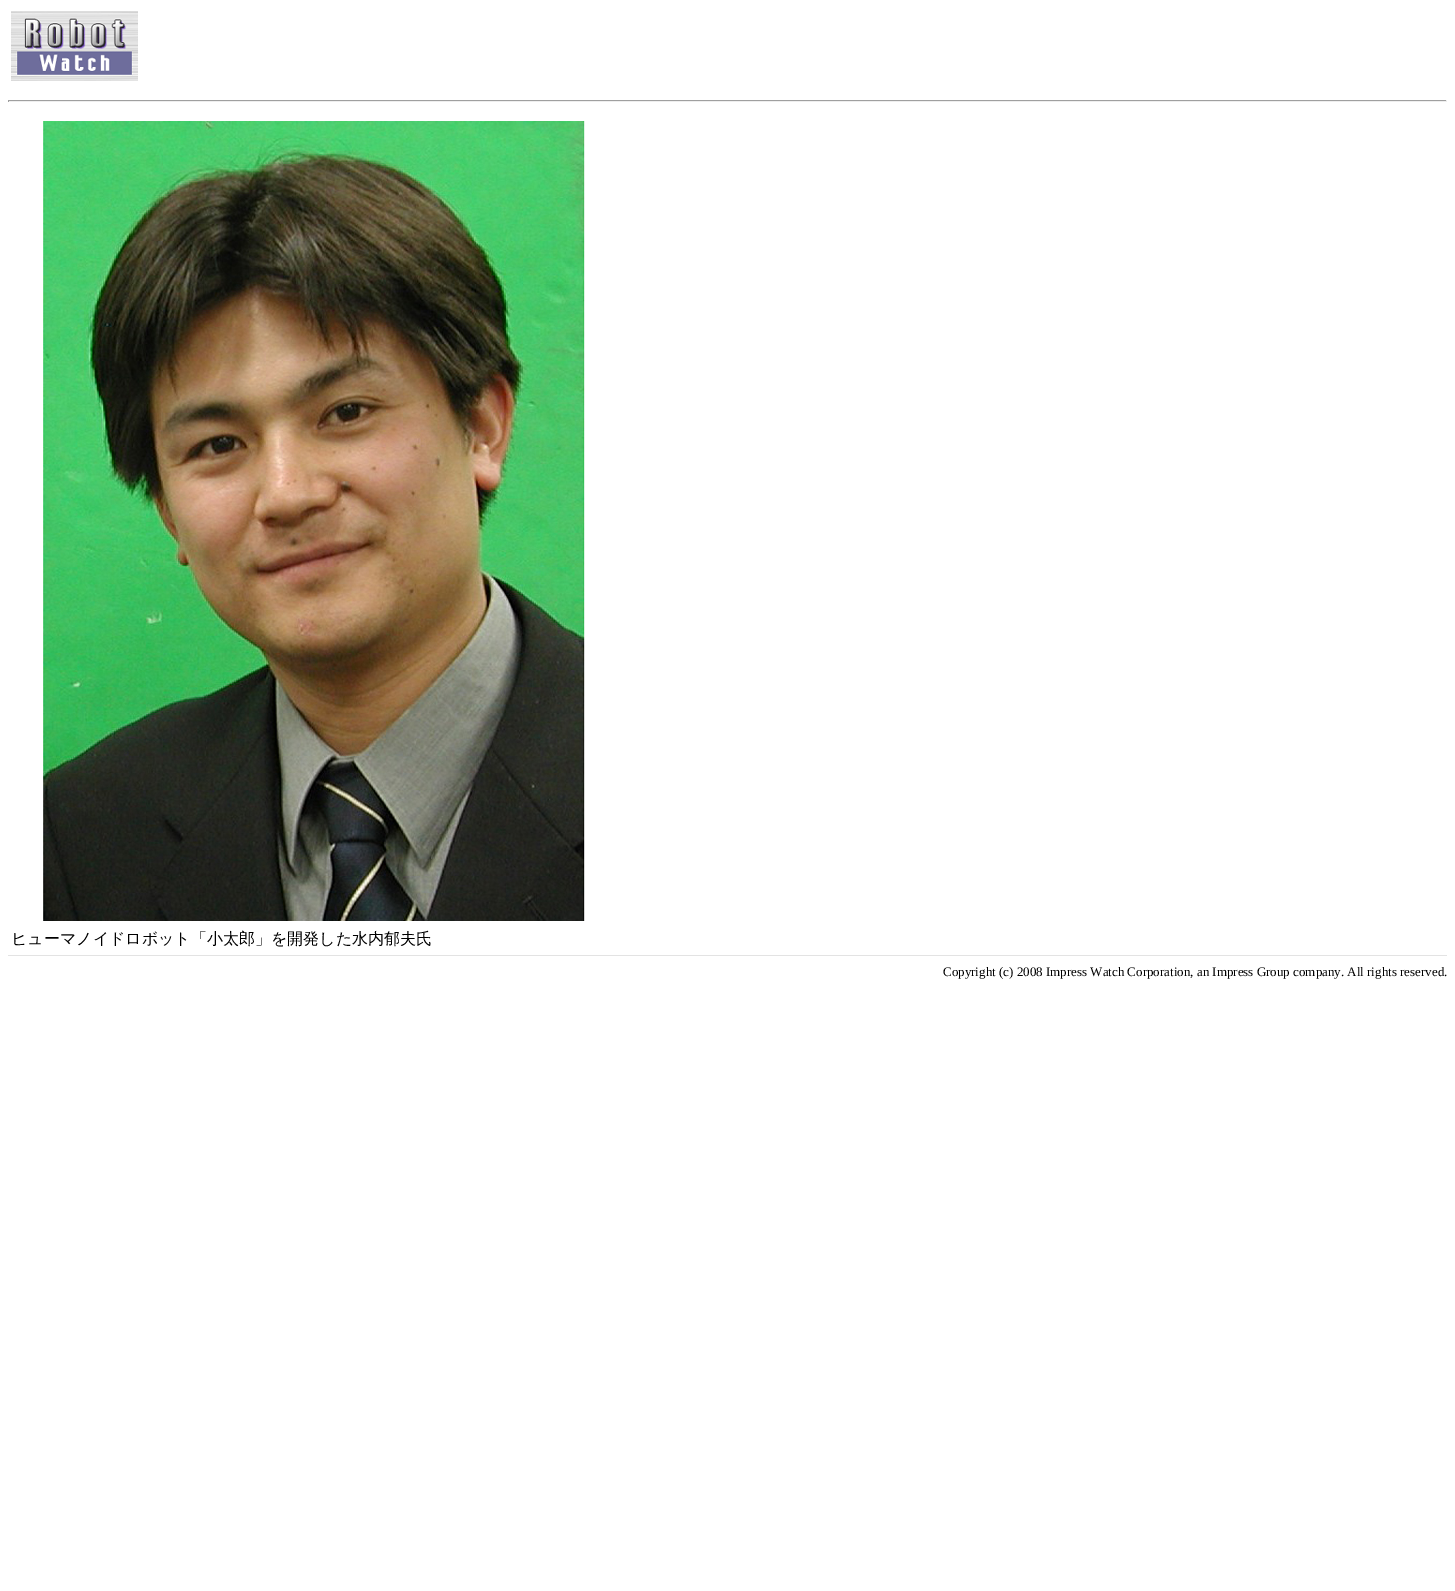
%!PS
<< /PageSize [1455 1591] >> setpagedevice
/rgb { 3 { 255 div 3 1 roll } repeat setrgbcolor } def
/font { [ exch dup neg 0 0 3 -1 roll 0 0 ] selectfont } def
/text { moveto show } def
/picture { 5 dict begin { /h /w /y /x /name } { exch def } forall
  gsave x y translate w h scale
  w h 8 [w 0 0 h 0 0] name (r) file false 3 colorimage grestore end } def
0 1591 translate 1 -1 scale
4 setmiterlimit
255 255 255 rgb
0 0 1455 1591 rectfill
(img_01.rgb) 11 11 127 70 picture
159 159 159 rgb
8 100 1439 1 rectfill
238 238 238 rgb
1446 100 1 2 rectfill
8 101 1439 1 rectfill
159 159 159 rgb
8 100 1 2 rectfill
(img_02.rgb) 43 121 542 800 picture
227 227 227 rgb
8 955 1439 1 rectfill
/WenQuanYiZenHei-Medium 16 font
0 0 0 rgb
(ヒューマノイドロボット「小太郎」を開発した水内郁夫氏) 11 944 text
/LiberationSerif-Regular 13 font
(Copyright \(c\) 2008 Impress Watch Corporation, an Impress Group company. All rights reserved.) 943 976 text
showpage
